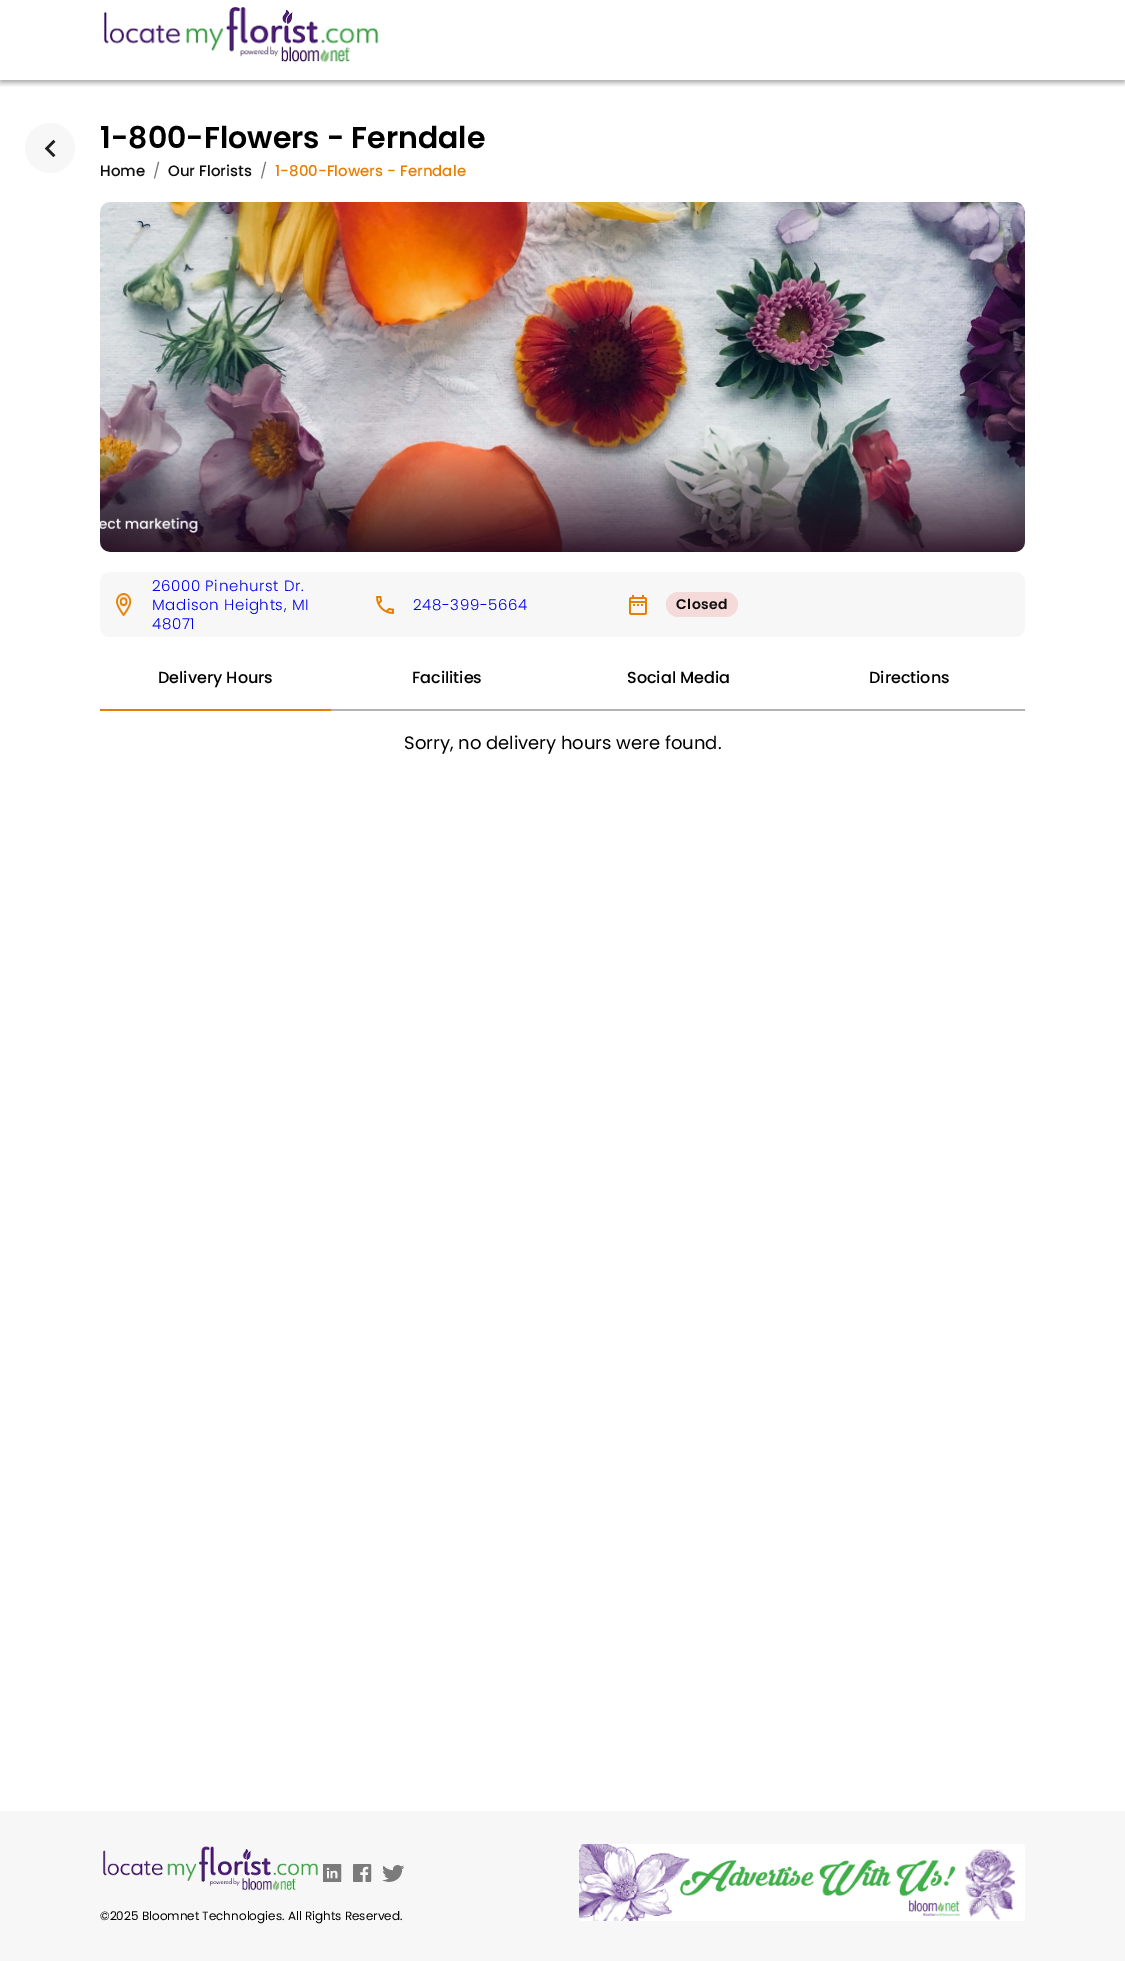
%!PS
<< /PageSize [1125 1961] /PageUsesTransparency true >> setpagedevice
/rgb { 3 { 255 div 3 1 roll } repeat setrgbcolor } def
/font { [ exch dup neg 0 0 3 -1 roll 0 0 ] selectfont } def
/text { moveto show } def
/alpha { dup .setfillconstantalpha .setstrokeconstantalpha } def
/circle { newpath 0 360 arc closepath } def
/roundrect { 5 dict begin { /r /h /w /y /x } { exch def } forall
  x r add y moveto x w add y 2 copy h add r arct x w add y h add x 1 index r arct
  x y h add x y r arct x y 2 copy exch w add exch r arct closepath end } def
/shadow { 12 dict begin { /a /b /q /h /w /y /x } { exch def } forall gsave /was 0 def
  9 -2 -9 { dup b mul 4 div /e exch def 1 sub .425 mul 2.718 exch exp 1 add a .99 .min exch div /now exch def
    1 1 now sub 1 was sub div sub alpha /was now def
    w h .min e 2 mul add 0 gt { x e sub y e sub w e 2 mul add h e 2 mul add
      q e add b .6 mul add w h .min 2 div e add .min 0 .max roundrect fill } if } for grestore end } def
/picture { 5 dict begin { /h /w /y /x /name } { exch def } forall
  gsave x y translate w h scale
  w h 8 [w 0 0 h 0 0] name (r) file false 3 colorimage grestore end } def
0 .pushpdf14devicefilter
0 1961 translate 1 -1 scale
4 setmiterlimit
255 255 255 rgb
0 0 1125 1961 rectfill
gsave
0 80 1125 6 rectclip
0 0 0 rgb
0 1 1125 80 0 5 0.12 shadow
grestore
gsave
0 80 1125 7 rectclip
0 0 0 rgb
0 4 1125 80 0 2.5 0.14 shadow
grestore
gsave
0 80 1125 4 rectclip
0 0 0 rgb
1 3 1123 78 0 2 0.2 shadow
grestore
(img_01.rgb) 104 7 275 57 picture
247 247 247 rgb
50 148 25 circle fill
(img_02.rgb) 44 139 12 19 picture
(img_03.rgb) 100 202 925 350 picture
100 572 925 65 10 roundrect fill
(img_04.rgb) 116 593 16 24 picture
(img_05.rgb) 376 596 18 18 picture
(img_06.rgb) 629 595 18 20 picture
245 218 218 rgb
666 592 72 25 12.5 roundrect fill
179 179 179 rgb
331 709 694 2 rectfill
233 127 2 rgb
100 709 231 2 rectfill
247 247 247 rgb
0 1811 1125 150 rectfill
(img_07.rgb) 103 1846 216 46 picture
(img_08.rgb) 323 1864 19 18 picture
(img_09.rgb) 353 1864 19 18 picture
(img_10.rgb) 382 1865 23 17 picture
(img_11.rgb) 579 1844 446 77 picture
/Poppins-SemiBold 30 font
0 0 0 rgb
(1-800-Flowers - Ferndale) 100 148 text
/Poppins-Medium 15 font
13 13 13 rgb
(Home) 100 176 text
/Poppins-Regular 15 font
117 117 117 rgb
(/) 153 176 text
/Poppins-Medium 15 font
13 13 13 rgb
(Our Florists) 168 176 text
/Poppins-Regular 15 font
117 117 117 rgb
(/) 260 176 text
/Poppins-Medium 15 font
233 127 2 rgb
(1-800-Flowers - Ferndale) 275 176 text
/Poppins-Light 15 font
0 0 238 rgb
152 591 moveto 0.6 0 (26000 Pinehurst Dr.) ashow
152 610 moveto 0.6 0 (Madison Heights, MI) ashow
152 629 moveto 0.6 0 (48071) ashow
413 610 moveto 0.6 0 (248-399-5664) ashow
/Poppins-SemiBold 14 font
13 13 13 rgb
676 609 moveto 0.5 0 (Closed) ashow
/Poppins-Medium 16 font
0 0 0 rgb
(Delivery Hours) 158 683 text
(Facilities) 412 683 text
(Social Media) 627 683 text
(Directions) 869 683 text
/Poppins-Regular 18 font
(Sorry, no delivery hours were found.) 404 749 text
/Poppins-Regular 12 font
(©2025 Bloomnet Technologies. All Rights Reserved.) 100 1920 text
.poppdf14devicefilter showpage
